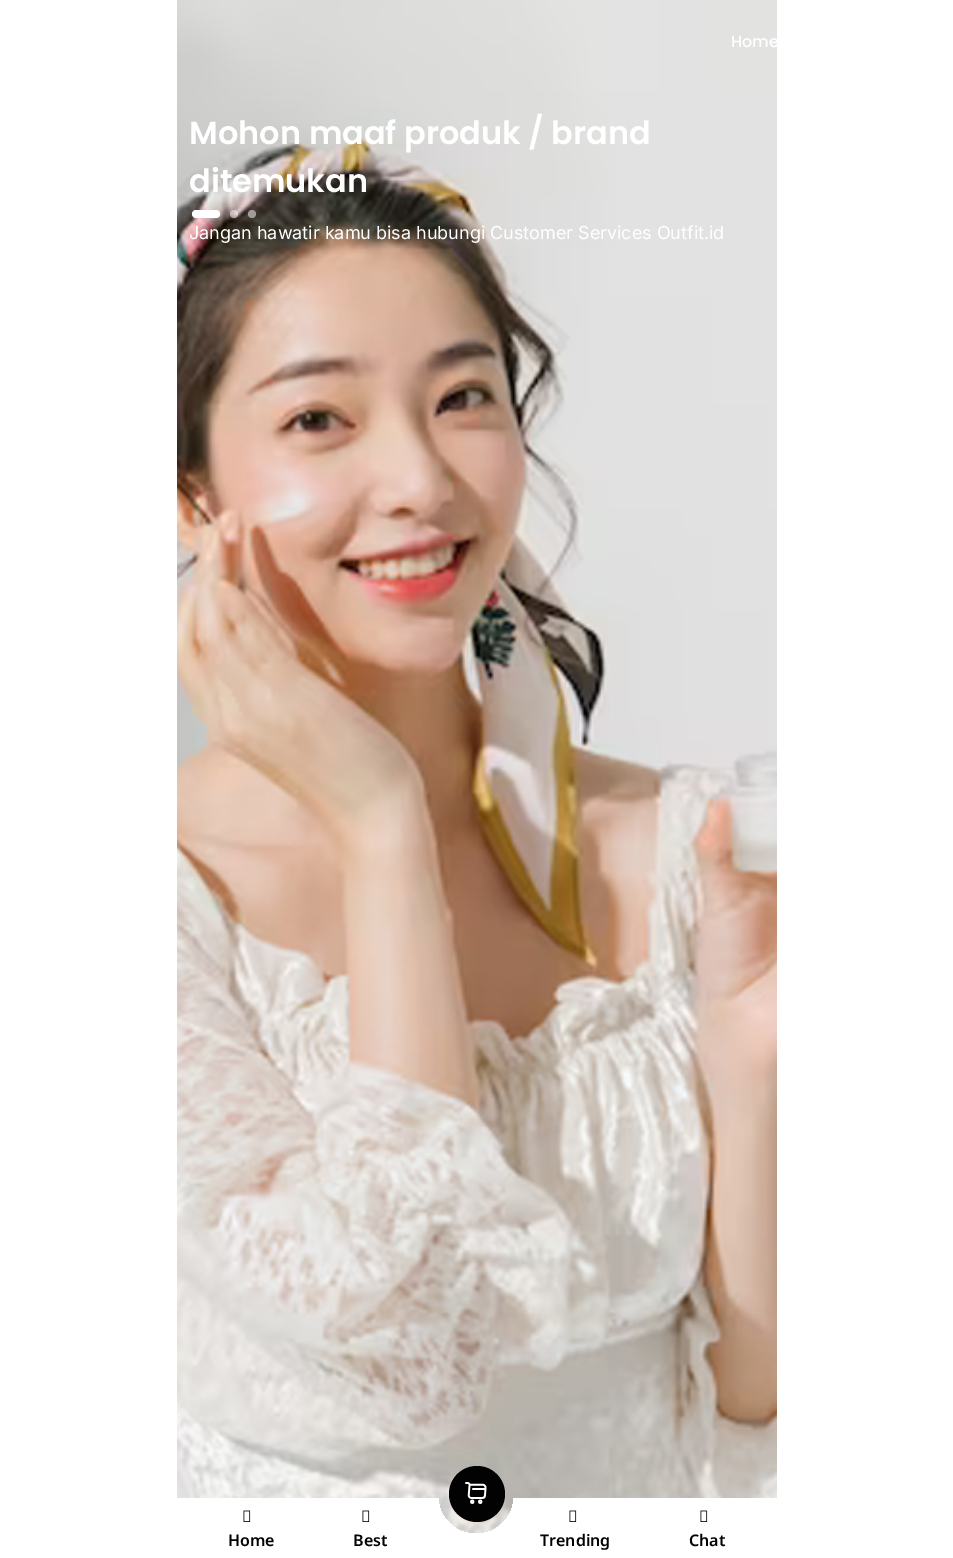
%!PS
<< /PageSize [953 1558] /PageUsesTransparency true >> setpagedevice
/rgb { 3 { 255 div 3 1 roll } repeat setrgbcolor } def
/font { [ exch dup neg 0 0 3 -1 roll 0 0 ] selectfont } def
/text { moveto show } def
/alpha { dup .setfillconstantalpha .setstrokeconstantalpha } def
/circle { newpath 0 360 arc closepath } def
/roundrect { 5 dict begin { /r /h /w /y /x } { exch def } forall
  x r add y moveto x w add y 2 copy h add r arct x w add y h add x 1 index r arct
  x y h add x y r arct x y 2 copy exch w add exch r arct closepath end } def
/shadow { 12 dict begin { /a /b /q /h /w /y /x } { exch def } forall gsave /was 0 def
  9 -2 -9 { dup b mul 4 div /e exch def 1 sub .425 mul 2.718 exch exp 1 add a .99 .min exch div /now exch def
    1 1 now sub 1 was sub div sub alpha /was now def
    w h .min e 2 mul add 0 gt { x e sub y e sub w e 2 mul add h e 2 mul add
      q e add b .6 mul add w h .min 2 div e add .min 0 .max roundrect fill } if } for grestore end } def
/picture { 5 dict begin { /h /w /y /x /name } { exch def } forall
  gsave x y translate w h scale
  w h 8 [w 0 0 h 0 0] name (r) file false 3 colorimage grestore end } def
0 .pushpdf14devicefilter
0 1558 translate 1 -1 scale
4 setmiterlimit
255 255 255 rgb
0 0 953 1558 rectfill
(img_01.rgb) 177 0 600 1558 picture
192 210 28 8 4 roundrect fill
0.5 alpha
234 214 4 circle fill
252 214 4 circle fill
1 alpha
255 226 218 rgb
449 1470 56 56 28 2 0.32 shadow
2 2 2 rgb
477 1494 28 circle fill
(img_02.rgb) 465 1482 22 22 picture
(img_03.rgb) 243 1510 8 12 picture
(img_03.rgb) 362 1510 8 12 picture
(img_03.rgb) 569 1510 8 12 picture
(img_03.rgb) 700 1510 8 12 picture
gsave
177 0 600 1558 rectclip
/Poppins-Medium 16 font
255 255 255 rgb
(Home) 731 47 text
grestore
/Poppins-SemiBold 32 font
255 255 255 rgb
(Mohon maaf produk / brand) 189 144 text
(ditemukan) 189 192 text
/Inter-Regular 18 font
(Jangan hawatir kamu bisa hubungi Customer Services Outfit.id) 189 239 text
/NotoSans-SemiBold 16 font
2 2 2 rgb
(Home) 228 1546 text
(Best) 353 1546 text
(Trending) 540 1546 text
(Chat) 689 1546 text
.poppdf14devicefilter showpage
